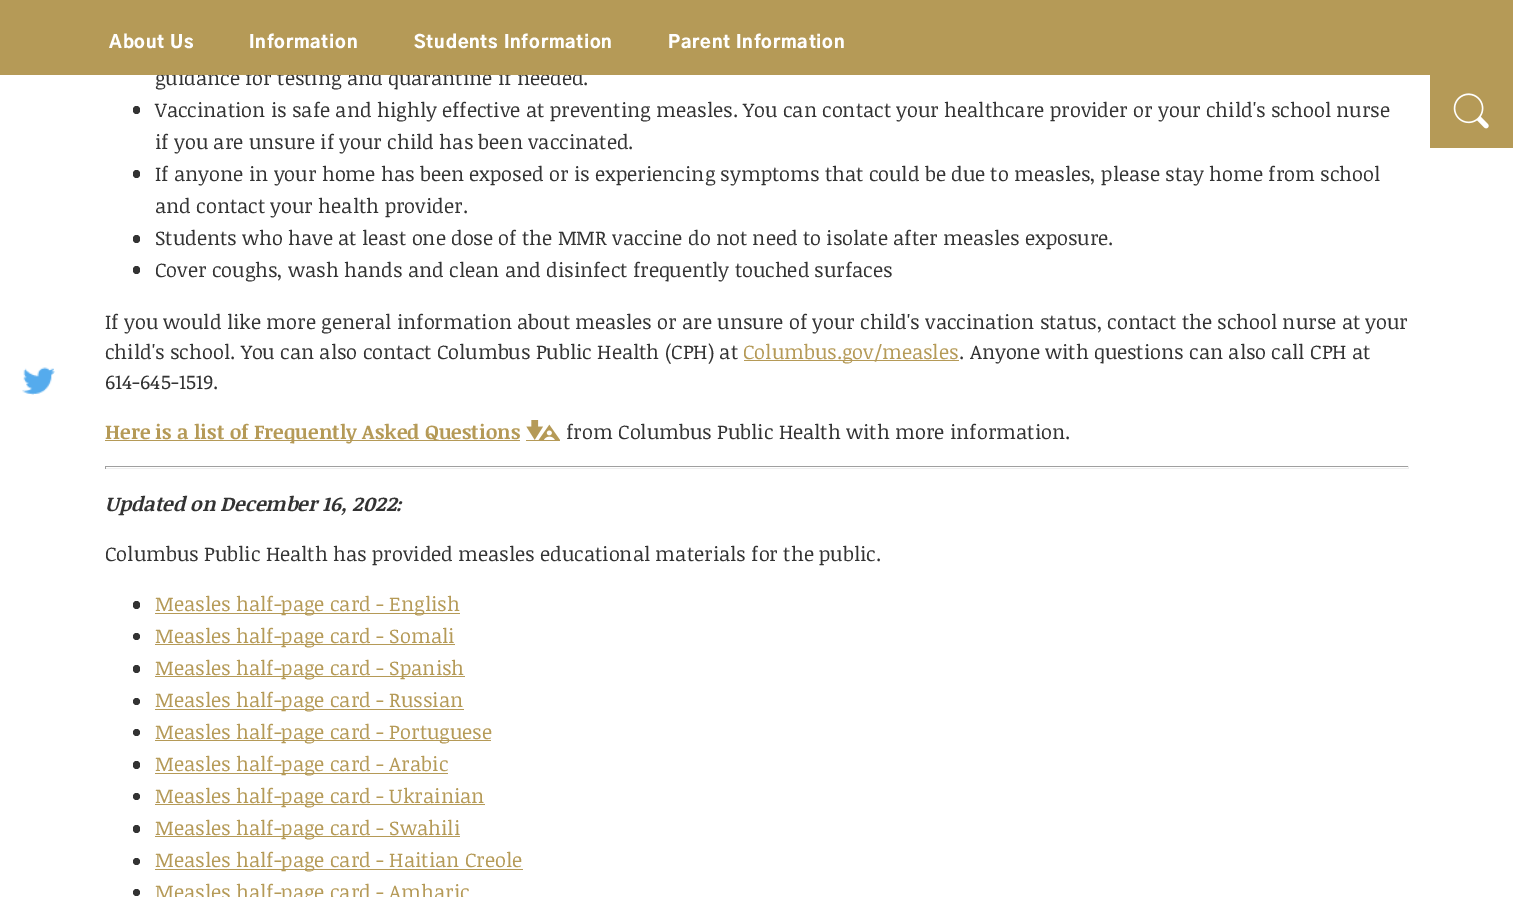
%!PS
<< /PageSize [1513 897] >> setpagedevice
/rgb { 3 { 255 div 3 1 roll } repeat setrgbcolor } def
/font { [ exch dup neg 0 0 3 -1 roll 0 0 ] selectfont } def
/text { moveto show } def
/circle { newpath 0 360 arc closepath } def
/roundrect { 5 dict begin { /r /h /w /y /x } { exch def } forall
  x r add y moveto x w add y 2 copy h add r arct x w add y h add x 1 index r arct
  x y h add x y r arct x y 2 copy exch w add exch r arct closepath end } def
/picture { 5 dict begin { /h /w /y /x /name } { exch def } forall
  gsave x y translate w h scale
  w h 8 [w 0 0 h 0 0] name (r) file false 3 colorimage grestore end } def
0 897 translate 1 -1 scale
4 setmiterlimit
255 255 255 rgb
0 0 1513 897 rectfill
51 51 51 rgb
133 106 7 8 3.5 roundrect fill
133 170 7 8 3.5 roundrect fill
133 235 7 8 3.5 roundrect fill
133 266 7 8 3.5 roundrect fill
181 154 87 rgb
744 360 215 1 rectfill
105 440 415 1 rectfill
526 440 34 1 rectfill
(img_01.rgb) 526 420 34 20 picture
159 159 159 rgb
105 466 1304 1 rectfill
238 238 238 rgb
1408 466 1 3 rectfill
105 468 1304 1 rectfill
159 159 159 rgb
105 466 1 3 rectfill
51 51 51 rgb
133 601 7 8 3.5 roundrect fill
181 154 87 rgb
155 613 305 1 rectfill
51 51 51 rgb
136.5 636.5 3.5 circle fill
181 154 87 rgb
155 644 300 1 rectfill
51 51 51 rgb
133 665 7 8 3.5 roundrect fill
181 154 87 rgb
155 676 310 1 rectfill
51 51 51 rgb
136.5 701.5 3.5 circle fill
181 154 87 rgb
155 709 309 1 rectfill
51 51 51 rgb
136.5 732.5 3.5 circle fill
181 154 87 rgb
155 740 336 1 rectfill
51 51 51 rgb
133 761 7 8 3.5 roundrect fill
181 154 87 rgb
155 773 293 1 rectfill
51 51 51 rgb
136.5 796.5 3.5 circle fill
181 154 87 rgb
155 804 330 1 rectfill
51 51 51 rgb
133 825 7 8 3.5 roundrect fill
181 154 87 rgb
155 836 305 1 rectfill
51 51 51 rgb
136.5 861.5 3.5 circle fill
181 154 87 rgb
155 869 368 1 rectfill
51 51 51 rgb
136.5 892.5 3.5 circle fill
181 154 87 rgb
1430 75 83 73 rectfill
(img_02.rgb) 1453 93 36 36 picture
(img_03.rgb) 22 367 33 28 picture
/NoticiaText-Regular 20 font
51 51 51 rgb
(guidance for testing and quarantine if needed.) 155 85 text
181 154 87 rgb
0 0 1513 75 rectfill
/GothicA1-Black 17.5 font
255 255 255 rgb
109 48 moveto 0.8 0 (About Us) ashow
249 48 moveto 0.8 0 (Information) ashow
414 48 moveto 0.8 0 (Students Information) ashow
668 48 moveto 0.8 0 (Parent Information) ashow
/NoticiaText-Regular 20 font
51 51 51 rgb
(Vaccination is safe and highly effective at preventing measles. You can contact your healthcare provider or your child's school nurse) 155 117 text
(if you are unsure if your child has been vaccinated.) 155 149 text
(If anyone in your home has been exposed or is experiencing symptoms that could be due to measles, please stay home from school) 155 181 text
(and contact your health provider.) 155 213 text
(Students who have at least one dose of the MMR vaccine do not need to isolate after measles exposure.) 155 245 text
(Cover coughs, wash hands and clean and disinfect frequently touched surfaces) 155 277 text
(If you would like more general information about measles or are unsure of your child's vaccination status, contact the school nurse at your) 105 329 text
(child's school. You can also contact Columbus Public Health \(CPH\) at) 105 359 text
181 154 87 rgb
(Columbus.gov/measles) 743 359 text
51 51 51 rgb
(. Anyone with questions can also call CPH at) 959 359 text
(614-645-1519.) 105 389 text
/NoticiaText-Bold 20 font
181 154 87 rgb
(Here is a list of Frequently Asked Questions) 105 439 text
/NoticiaText-Regular 20 font
51 51 51 rgb
(from Columbus Public Health with more information.) 566 439 text
/NoticiaText-BoldItalic 20 font
(Updated on December 16, 2022:) 105 511 text
/NoticiaText-Regular 20 font
(Columbus Public Health has provided measles educational materials for the public.) 105 561 text
181 154 87 rgb
(Measles half-page card - English) 155 611 text
(Measles half-page card - Somali) 155 643 text
(Measles half-page card - Spanish) 155 675 text
(Measles half-page card - Russian) 155 707 text
(Measles half-page card - Portuguese) 155 739 text
(Measles half-page card - Arabic) 155 771 text
(Measles half-page card - Ukrainian) 155 803 text
(Measles half-page card - Swahili) 155 835 text
(Measles half-page card - Haitian Creole) 155 867 text
(Measles half-page card - Amharic) 155 899 text
showpage
